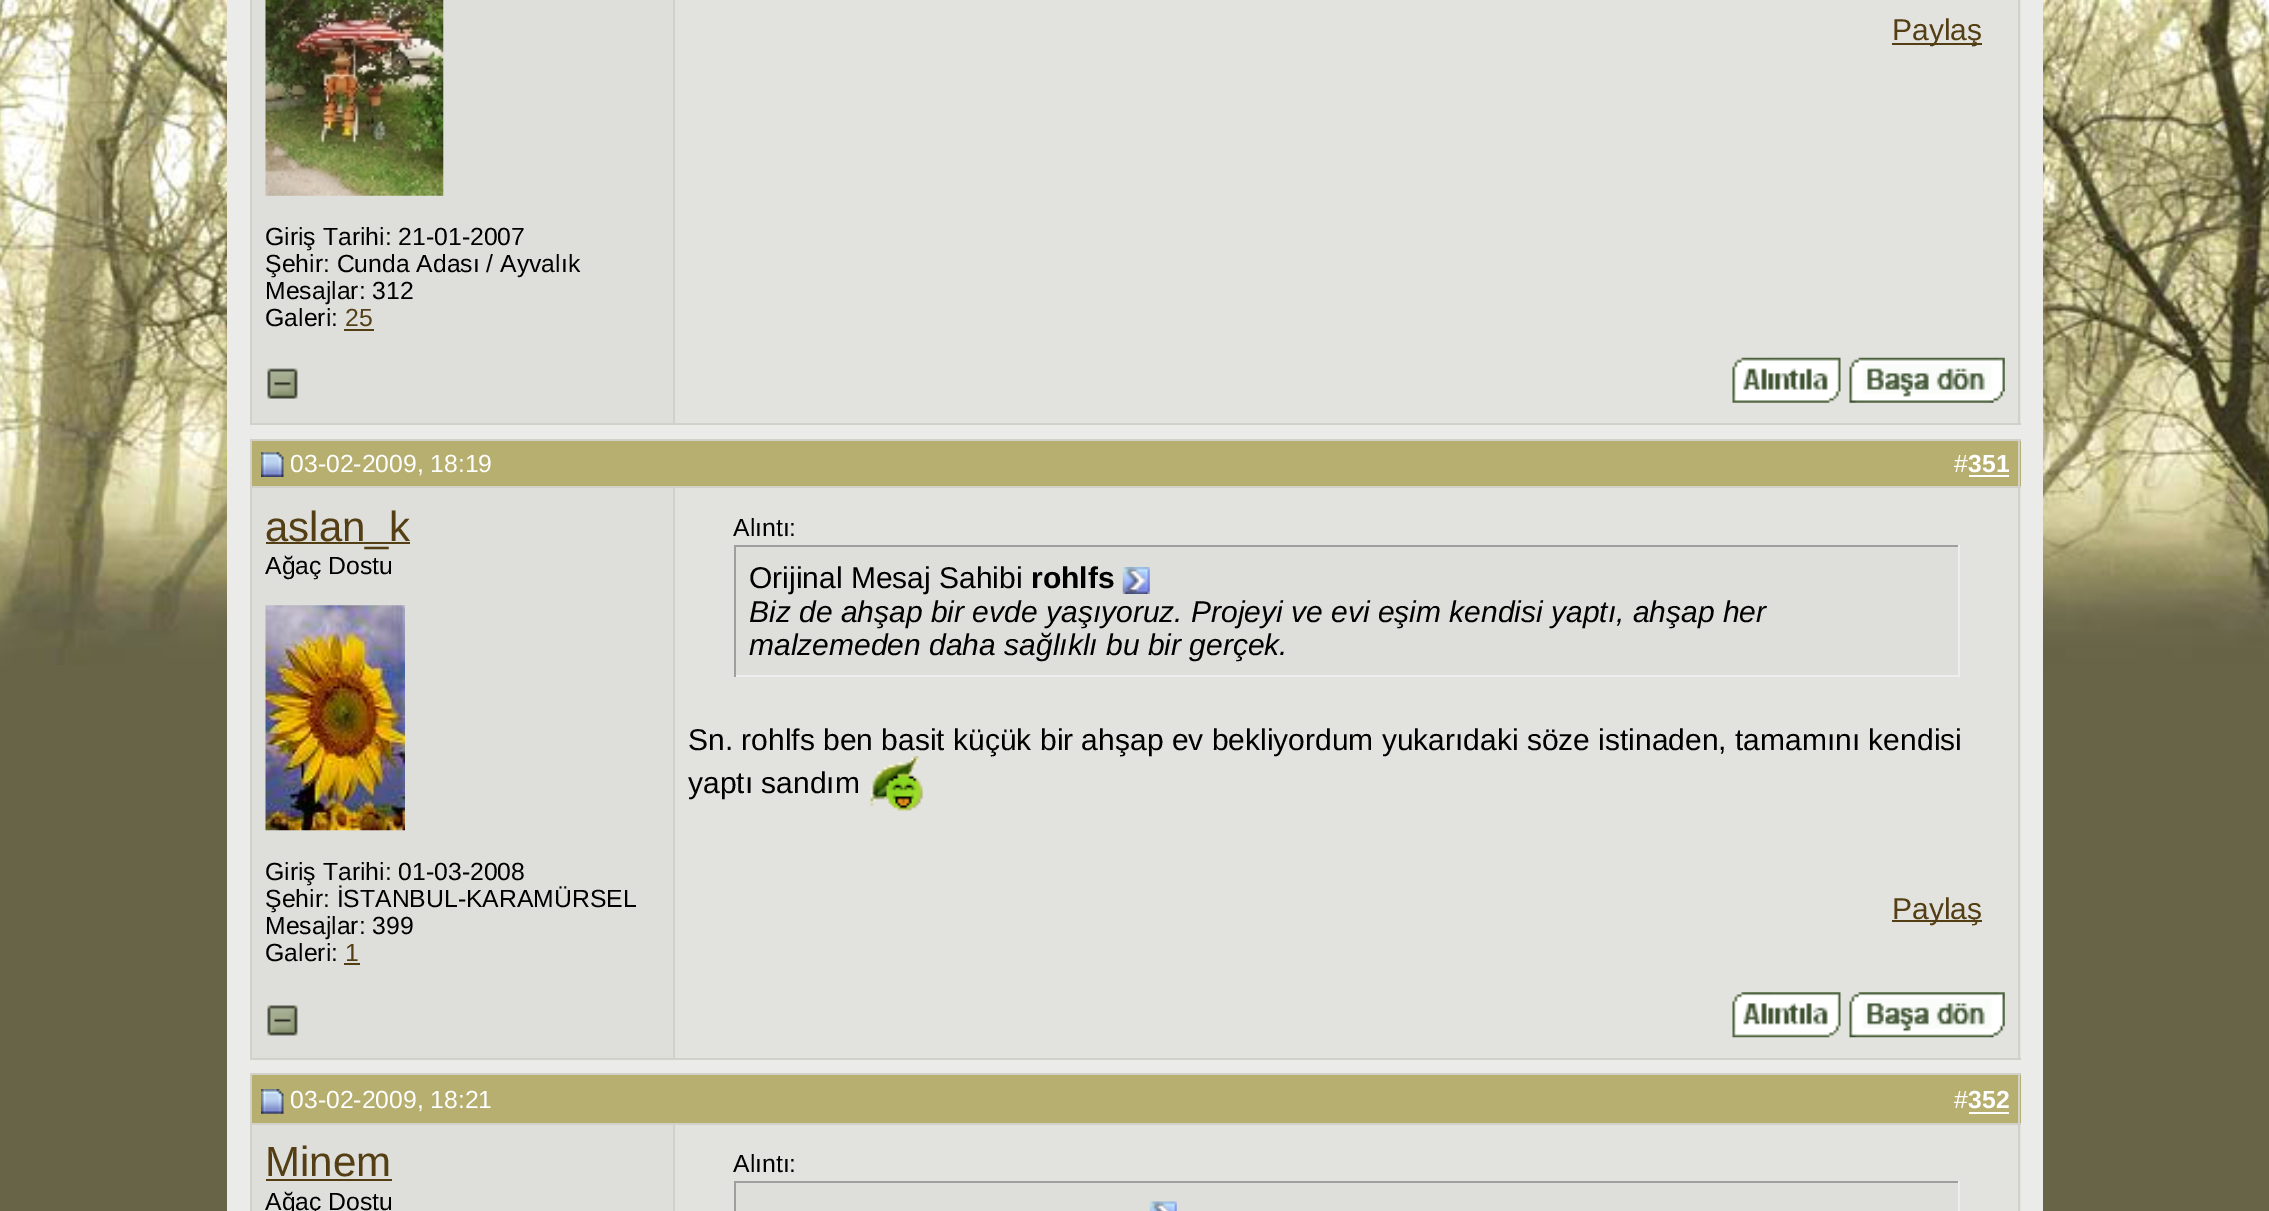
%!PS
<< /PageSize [2269 1211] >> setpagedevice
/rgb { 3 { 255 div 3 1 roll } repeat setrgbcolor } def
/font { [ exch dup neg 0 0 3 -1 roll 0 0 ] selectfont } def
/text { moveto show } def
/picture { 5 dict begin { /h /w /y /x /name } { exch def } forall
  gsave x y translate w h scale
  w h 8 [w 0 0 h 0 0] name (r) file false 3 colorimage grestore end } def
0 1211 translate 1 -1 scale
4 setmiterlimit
103 100 71 rgb
0 0 2269 1211 rectfill
(img_01.rgb) 0 0 2269 665 picture
235 235 234 rgb
227 0 1816 1211 rectfill
226 226 222 rgb
675 0 1346 423 rectfill
209 209 201 rgb
2018 0 2 425 rectfill
84 63 21 rgb
1892 43 90 2 rectfill
222 222 219 rgb
252 0 421 423 rectfill
209 209 201 rgb
673 0 2 425 rectfill
250 0 2 344 rectfill
(img_02.rgb) 265 0 179 196 picture
84 63 21 rgb
344 329 30 2 rectfill
209 209 201 rgb
250 423 1771 2 rectfill
250 344 2 81 rectfill
(img_03.rgb) 267 368 31 31 picture
(img_04.rgb) 1732 357 109 46 picture
(img_05.rgb) 1849 357 156 46 picture
183 175 111 rgb
252 441 1769 45 rectfill
209 209 201 rgb
250 439 1771 2 rectfill
250 486 425 2 rectfill
250 439 2 540 rectfill
(img_06.rgb) 261 452 23 25 picture
2018 439 2 49 rectfill
675 486 1346 2 rectfill
255 255 255 rgb
1969 475 40 2 rectfill
222 222 219 rgb
252 488 421 570 rectfill
209 209 201 rgb
673 488 2 572 rectfill
84 63 21 rgb
266 542 144 2 rectfill
(img_07.rgb) 265 605 140 226 picture
344 963 16 2 rectfill
226 226 222 rgb
675 488 1346 570 rectfill
209 209 201 rgb
2018 488 2 572 rectfill
222 222 219 rgb
736 547 1222 128 rectfill
159 159 159 rgb
734 545 1226 2 rectfill
238 238 238 rgb
1958 545 2 132 rectfill
734 675 1226 2 rectfill
159 159 159 rgb
734 545 2 132 rectfill
(img_08.rgb) 1122 567 28 27 picture
84 63 21 rgb
1892 920 90 2 rectfill
209 209 201 rgb
250 1058 1771 2 rectfill
250 979 2 81 rectfill
(img_10.rgb) 267 1005 31 31 picture
(img_11.rgb) 1732 992 109 46 picture
(img_12.rgb) 1849 992 156 46 picture
183 175 111 rgb
252 1075 1769 48 rectfill
209 209 201 rgb
250 1073 1771 2 rectfill
250 1123 425 2 rectfill
250 1073 2 138 rectfill
(img_13.rgb) 261 1089 23 25 picture
2018 1073 2 52 rectfill
675 1123 1346 2 rectfill
255 255 255 rgb
1969 1112 40 2 rectfill
222 222 219 rgb
252 1125 421 86 rectfill
209 209 201 rgb
673 1125 2 86 rectfill
84 63 21 rgb
266 1179 126 2 rectfill
226 226 222 rgb
675 1125 1346 86 rectfill
209 209 201 rgb
2018 1125 2 86 rectfill
222 222 219 rgb
736 1183 1222 28 rectfill
159 159 159 rgb
734 1181 1226 2 rectfill
238 238 238 rgb
1958 1181 2 30 rectfill
159 159 159 rgb
734 1181 2 30 rectfill
(img_14.rgb) 1149 1201 28 10 picture
/LiberationSans-Regular 30 font
84 63 21 rgb
(Paylaş) 1892 40 text
/LiberationSans-Regular 24.75 font
0 0 0 rgb
(Giriş Tarihi: 21-01-2007) 265 245 text
(Şehir: Cunda Adası / Ayvalık) 265 272 text
(Mesajlar: 312) 265 299 text
(Galeri:) 265 326 text
84 63 21 rgb
(25) 345 326 text
255 255 255 rgb
(03-02-2009, 18:19) 290 472 text
(#) 1954 472 text
/LiberationSans-Bold 24.75 font
(351) 1968 472 text
/LiberationSans-Regular 42 font
84 63 21 rgb
(aslan_k) 265 541 text
/LiberationSans-Regular 24.75 font
0 0 0 rgb
(Ağaç Dostu) 265 574 text
(Giriş Tarihi: 01-03-2008) 265 880 text
(Şehir: İSTANBUL-KARAMÜRSEL) 265 907 text
(Mesajlar: 399) 265 934 text
(Galeri:) 265 961 text
84 63 21 rgb
(1) 345 961 text
0 0 0 rgb
(Alıntı:) 733 536 text
/LiberationSans-Regular 30 font
(Orijinal Mesaj Sahibi) 749 588 text
/LiberationSans-Bold 30 font
(rohlfs) 1031 588 text
/LiberationSans-Italic 30 font
(Biz de ahşap bir evde yaşıyoruz. Projeyi ve evi eşim kendisi yaptı, ahşap her) 749 622 text
(malzemeden daha sağlıklı bu bir gerçek.) 749 655 text
/LiberationSans-Regular 30 font
(Sn. rohlfs ben basit küçük bir ahşap ev bekliyordum yukarıdaki söze istinaden, tamamını kendisi) 688 750 text
(yaptı sandım) 688 793 text
(img_09.rgb) 870 756 54 55 picture
84 63 21 rgb
(Paylaş) 1892 919 text
/LiberationSans-Regular 24.75 font
255 255 255 rgb
(03-02-2009, 18:21) 290 1108 text
(#) 1954 1108 text
/LiberationSans-Bold 24.75 font
(352) 1968 1108 text
/LiberationSans-Regular 42 font
84 63 21 rgb
(Minem) 265 1176 text
/LiberationSans-Regular 24.75 font
0 0 0 rgb
(Ağaç Dostu) 265 1210 text
(Alıntı:) 733 1172 text
showpage
